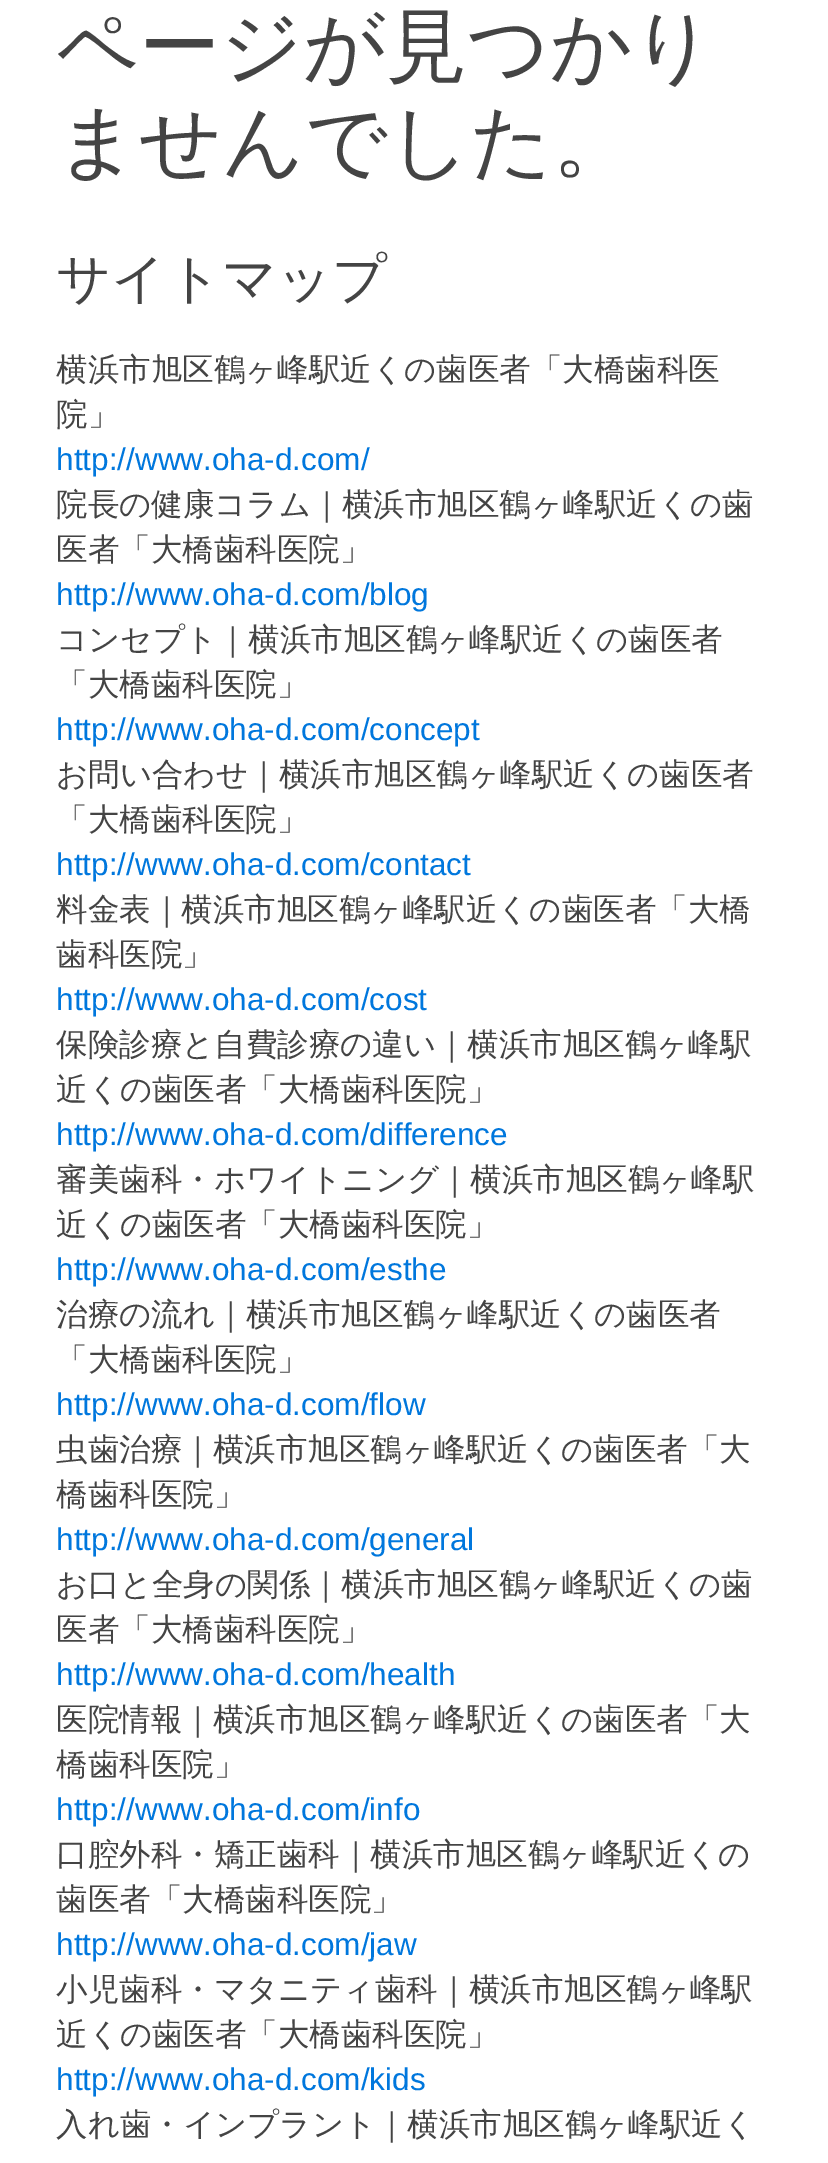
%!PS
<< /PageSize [828 2163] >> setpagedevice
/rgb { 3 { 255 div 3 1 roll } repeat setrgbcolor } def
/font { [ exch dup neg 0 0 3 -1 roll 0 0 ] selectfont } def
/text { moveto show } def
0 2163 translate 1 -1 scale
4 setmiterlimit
255 255 255 rgb
0 0 828 2163 rectfill
/WenQuanYiZenHei-Medium 81 font
68 68 68 rgb
(ページが見つかり) 56 74 text
(ませんでした。) 56 169 text
/WenQuanYiZenHei-Medium 54 font
(サイトマップ) 56 297 text
/WenQuanYiZenHei-Medium 31.5 font
(横浜市旭区鶴ヶ峰駅近くの歯医者「大橋歯科医) 56 380 text
(院」) 56 425 text
/LiberationSans-Regular 31.5 font
0 119 221 rgb
(http://www.oha-d.com/) 56 470 text
/WenQuanYiZenHei-Medium 31.5 font
68 68 68 rgb
(院長の健康コラム｜横浜市旭区鶴ヶ峰駅近くの歯) 56 515 text
(医者「大橋歯科医院」) 56 560 text
/LiberationSans-Regular 31.5 font
0 119 221 rgb
(http://www.oha-d.com/blog) 56 605 text
/WenQuanYiZenHei-Medium 31.5 font
68 68 68 rgb
(コンセプト｜横浜市旭区鶴ヶ峰駅近くの歯医者) 56 650 text
(「大橋歯科医院」) 56 695 text
/LiberationSans-Regular 31.5 font
0 119 221 rgb
(http://www.oha-d.com/concept) 56 740 text
/WenQuanYiZenHei-Medium 31.5 font
68 68 68 rgb
(お問い合わせ｜横浜市旭区鶴ヶ峰駅近くの歯医者) 56 785 text
(「大橋歯科医院」) 56 830 text
/LiberationSans-Regular 31.5 font
0 119 221 rgb
(http://www.oha-d.com/contact) 56 875 text
/WenQuanYiZenHei-Medium 31.5 font
68 68 68 rgb
(料金表｜横浜市旭区鶴ヶ峰駅近くの歯医者「大橋) 56 920 text
(歯科医院」) 56 965 text
/LiberationSans-Regular 31.5 font
0 119 221 rgb
(http://www.oha-d.com/cost) 56 1010 text
/WenQuanYiZenHei-Medium 31.5 font
68 68 68 rgb
(保険診療と自費診療の違い｜横浜市旭区鶴ヶ峰駅) 56 1055 text
(近くの歯医者「大橋歯科医院」) 56 1100 text
/LiberationSans-Regular 31.5 font
0 119 221 rgb
(http://www.oha-d.com/difference) 56 1145 text
/WenQuanYiZenHei-Medium 31.5 font
68 68 68 rgb
(審美歯科・ホワイトニング｜横浜市旭区鶴ヶ峰駅) 56 1190 text
(近くの歯医者「大橋歯科医院」) 56 1235 text
/LiberationSans-Regular 31.5 font
0 119 221 rgb
(http://www.oha-d.com/esthe) 56 1280 text
/WenQuanYiZenHei-Medium 31.5 font
68 68 68 rgb
(治療の流れ｜横浜市旭区鶴ヶ峰駅近くの歯医者) 56 1325 text
(「大橋歯科医院」) 56 1370 text
/LiberationSans-Regular 31.5 font
0 119 221 rgb
(http://www.oha-d.com/flow) 56 1415 text
/WenQuanYiZenHei-Medium 31.5 font
68 68 68 rgb
(虫歯治療｜横浜市旭区鶴ヶ峰駅近くの歯医者「大) 56 1460 text
(橋歯科医院」) 56 1505 text
/LiberationSans-Regular 31.5 font
0 119 221 rgb
(http://www.oha-d.com/general) 56 1550 text
/WenQuanYiZenHei-Medium 31.5 font
68 68 68 rgb
(お口と全身の関係｜横浜市旭区鶴ヶ峰駅近くの歯) 56 1595 text
(医者「大橋歯科医院」) 56 1640 text
/LiberationSans-Regular 31.5 font
0 119 221 rgb
(http://www.oha-d.com/health) 56 1685 text
/WenQuanYiZenHei-Medium 31.5 font
68 68 68 rgb
(医院情報｜横浜市旭区鶴ヶ峰駅近くの歯医者「大) 56 1730 text
(橋歯科医院」) 56 1775 text
/LiberationSans-Regular 31.5 font
0 119 221 rgb
(http://www.oha-d.com/info) 56 1820 text
/WenQuanYiZenHei-Medium 31.5 font
68 68 68 rgb
(口腔外科・矯正歯科｜横浜市旭区鶴ヶ峰駅近くの) 56 1865 text
(歯医者「大橋歯科医院」) 56 1910 text
/LiberationSans-Regular 31.5 font
0 119 221 rgb
(http://www.oha-d.com/jaw) 56 1955 text
/WenQuanYiZenHei-Medium 31.5 font
68 68 68 rgb
(小児歯科・マタニティ歯科｜横浜市旭区鶴ヶ峰駅) 56 2000 text
(近くの歯医者「大橋歯科医院」) 56 2045 text
/LiberationSans-Regular 31.5 font
0 119 221 rgb
(http://www.oha-d.com/kids) 56 2090 text
/WenQuanYiZenHei-Medium 31.5 font
68 68 68 rgb
(入れ歯・インプラント｜横浜市旭区鶴ヶ峰駅近く) 56 2135 text
showpage
